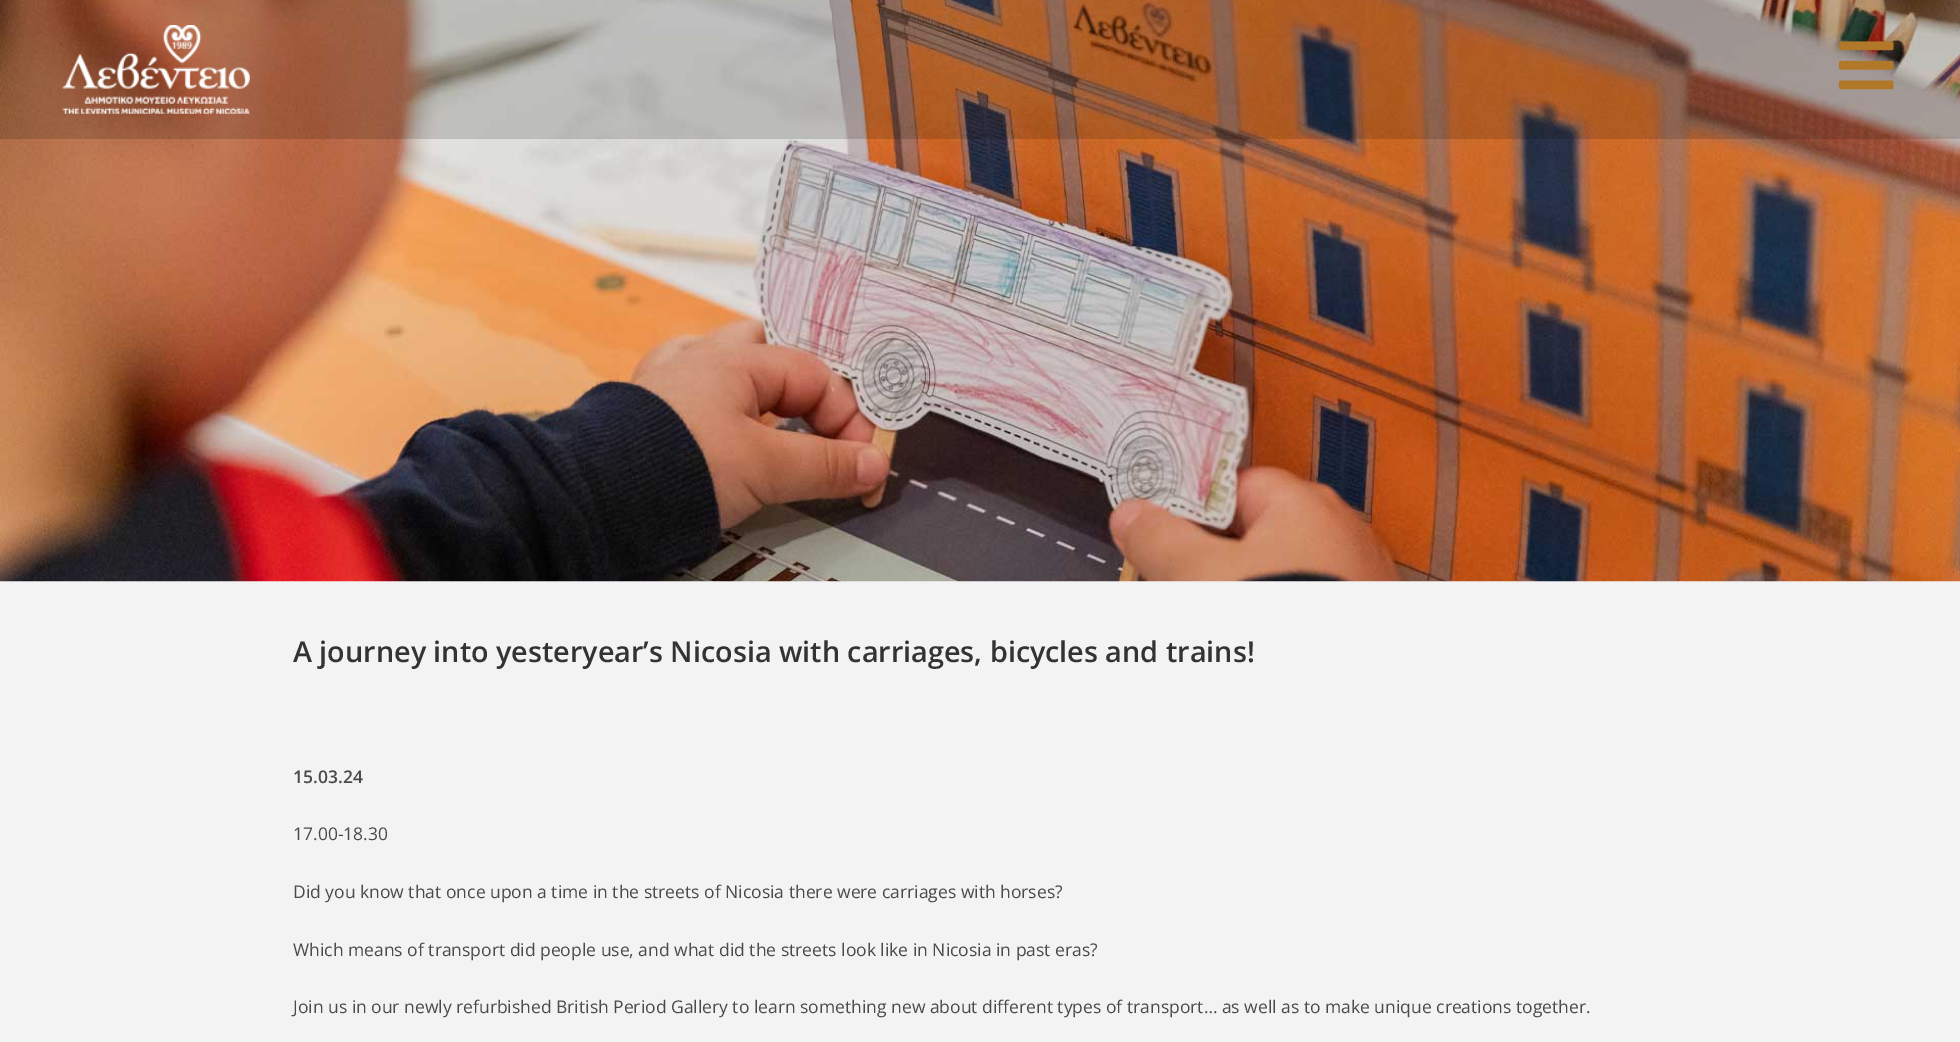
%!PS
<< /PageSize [1960 1042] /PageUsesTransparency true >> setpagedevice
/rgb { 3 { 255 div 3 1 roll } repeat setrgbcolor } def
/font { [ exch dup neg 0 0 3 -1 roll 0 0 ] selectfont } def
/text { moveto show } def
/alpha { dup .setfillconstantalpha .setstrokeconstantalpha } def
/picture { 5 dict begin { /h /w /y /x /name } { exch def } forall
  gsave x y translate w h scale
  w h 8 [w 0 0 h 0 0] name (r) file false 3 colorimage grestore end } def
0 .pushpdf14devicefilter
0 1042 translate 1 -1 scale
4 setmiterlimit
243 243 244 rgb
0 0 1960 1042 rectfill
(img_03.rgb) 0 0 1960 582 picture
0.15 alpha
0 0 0 rgb
0 0 1960 139 rectfill
1 alpha
(img_01.rgb) 62 25 188 89 picture
(img_02.rgb) 1838 41 56 49 picture
/OpenSans-SemiBold 28.75 font
51 51 51 rgb
(A journey into yesteryear’s Nicosia with carriages, bicycles and trains!) 293 662 text
/OpenSans-SemiBold 17.5 font
74 74 74 rgb
(15.03.24) 293 783 text
/OpenSans-Regular 17.5 font
(17.00-18.30) 293 840 text
(Did you know that once upon a time in the streets of Nicosia there were carriages with horses?) 293 898 text
(Which means of transport did people use, and what did the streets look like in Nicosia in past eras?) 293 956 text
(Join us in our newly refurbished British Period Gallery to learn something new about different types of transport… as well as to make unique creations together.) 293 1013 text
.poppdf14devicefilter showpage
